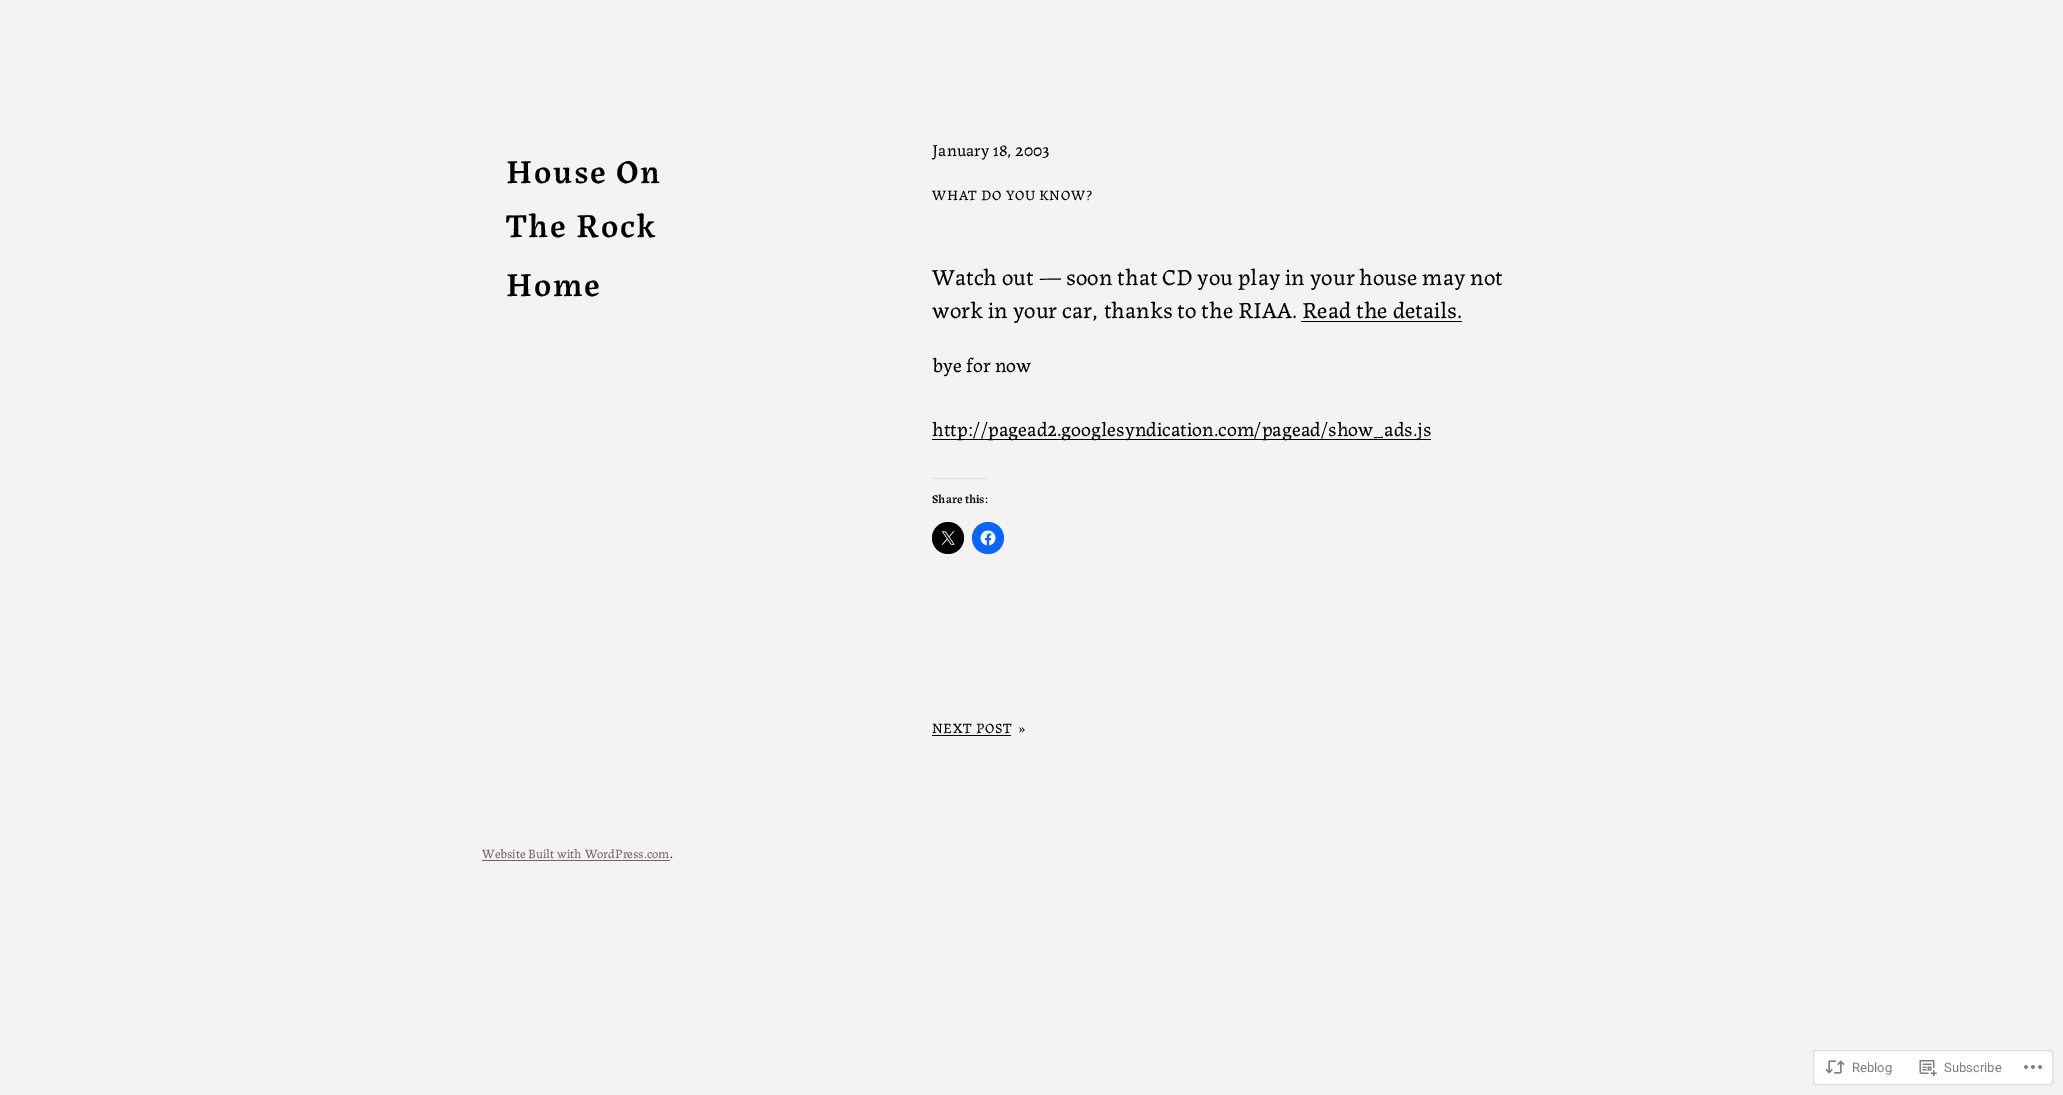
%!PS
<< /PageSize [2063 1095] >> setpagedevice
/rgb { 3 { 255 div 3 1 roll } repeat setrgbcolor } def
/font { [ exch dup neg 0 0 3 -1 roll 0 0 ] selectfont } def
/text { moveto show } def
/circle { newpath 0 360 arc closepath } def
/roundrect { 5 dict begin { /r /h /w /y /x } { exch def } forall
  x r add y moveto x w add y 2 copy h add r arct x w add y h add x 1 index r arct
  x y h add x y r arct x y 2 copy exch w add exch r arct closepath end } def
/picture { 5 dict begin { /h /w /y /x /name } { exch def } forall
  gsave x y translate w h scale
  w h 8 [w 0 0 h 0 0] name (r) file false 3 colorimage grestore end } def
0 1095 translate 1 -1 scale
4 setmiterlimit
245 243 241 rgb
0 0 2063 1095 rectfill
0 0 0 rgb
1301 321 161 1 rectfill
932 439 499 1 rectfill
220 220 222 rgb
932 478 55 1 rectfill
0 0 0 rgb
948 538 16 circle fill
(img_01.rgb) 941 531 14 14 picture
8 102 255 rgb
988 538 16 circle fill
(img_02.rgb) 980 530 16 16 picture
0 0 0 rgb
932 735 79 1 rectfill
109 100 102 rgb
482 860 188 1 rectfill
255 255 255 rgb
1813.5 1050.5 239 34 2.5 roundrect gsave fill grestore
221 220 222 rgb
stroke
(img_03.rgb) 1825 1060 20 14 picture
(img_04.rgb) 1919 1060 18 17 picture
(img_05.rgb) 2024 1065 18 4 picture
/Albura-SemiBold 33.5 font
0 0 0 rgb
506 183 moveto 1.75 0 (House On) ashow
506 237 moveto 1.75 0 (The Rock) ashow
506 296 moveto 1.75 0 (Home) ashow
/Albura-Regular 17 font
(January 18, 2003) 932 156 text
/Albura-Regular 14.4 font
932 200 moveto 0.6 0 (WHAT DO YOU KNOW?) ashow
/Albura-Regular 23.2 font
(Watch out — soon that CD you play in your house may not) 932 285 text
(work in your car, thanks to the RIAA. Read the details.) 932 318 text
/Albura-Regular 20 font
(bye for now) 932 372 text
(http://pagead2.googlesyndication.com/pagead/show_ads.js) 932 436 text
/Albura-SemiBold 12 font
(Share this:) 932 503 text
/Albura-Regular 14.4 font
932 733 moveto 0.6 0 (NEXT POST) ashow
1019 733 moveto 0.6 0 (») ashow
/Albura-Regular 12.75 font
109 100 102 rgb
(Website Built with WordPress.com) 482 858 text
0 0 0 rgb
(.) 670 858 text
/Roboto-Regular 13 font
123 126 132 rgb
(Reblog) 1852 1072 text
(Subscribe) 1944 1072 text
showpage
